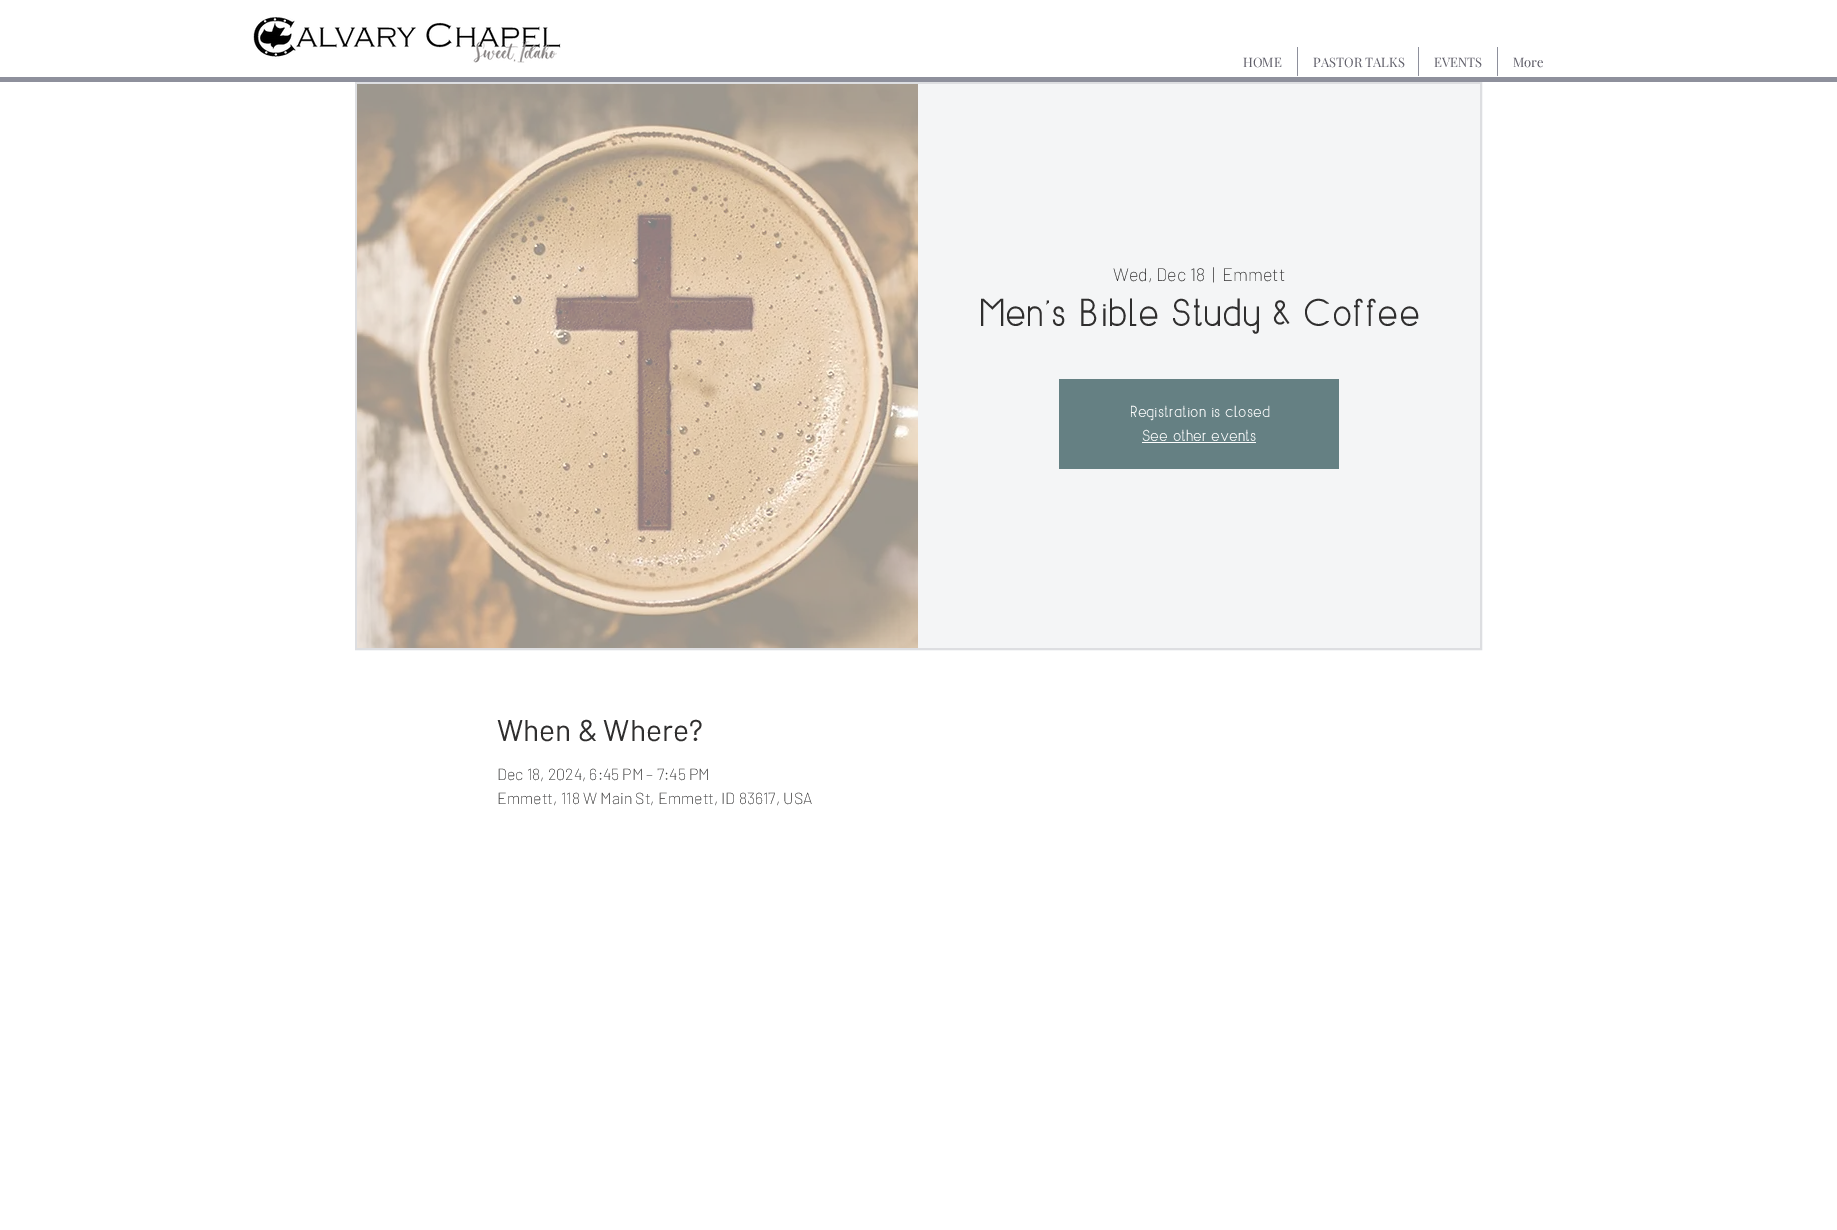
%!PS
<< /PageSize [1837 1230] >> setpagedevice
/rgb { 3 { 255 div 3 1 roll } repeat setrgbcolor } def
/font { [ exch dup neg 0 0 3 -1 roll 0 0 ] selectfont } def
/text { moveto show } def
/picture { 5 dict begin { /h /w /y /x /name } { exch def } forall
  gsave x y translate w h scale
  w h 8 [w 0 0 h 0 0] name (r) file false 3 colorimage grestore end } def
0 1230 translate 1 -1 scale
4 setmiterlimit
255 255 255 rgb
0 0 1837 1230 rectfill
(img_01.rgb) 253 17 308 46 picture
142 144 156 rgb
1297 47 1 29 rectfill
1418 47 1 29 rectfill
1497 47 1 29 rectfill
0 77 1837 5 rectfill
221 222 225 rgb
2 setlinewidth
356 83 1125 566 rectstroke
(img_02.rgb) 357 84 561 564 picture
244 245 246 rgb
918 84 562 564 rectfill
101 128 131 rgb
1059 379 280 90 rectfill
255 255 255 rgb
1142 442 114 1 rectfill
/PlayfairDisplay-Regular 13 font
95 94 105 rgb
(HOME) 1243 67 text
(PASTOR TALKS) 1313 67 text
(EVENTS) 1434 67 text
(More) 1513 67 text
/Barlow-ExtraLight 18 font
47 46 46 rgb
(Wed, Dec 18) 1113 281 text
(|) 1212 281 text
(Emmett) 1222 281 text
/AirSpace-Regular 39 font
(Men's Bible Study & Coffee) 979 326 text
/AirSpace-Regular 16 font
255 255 255 rgb
(Registration is closed) 1129 417 text
(See other events) 1142 441 text
/Barlow-Regular 30 font
47 46 46 rgb
(When & Where?) 497 741 text
/Barlow-ExtraLight 16 font
(Dec 18, 2024, 6:45 PM – 7:45 PM) 497 780 text
(Emmett, 118 W Main St, Emmett, ID 83617, USA) 497 804 text
showpage
